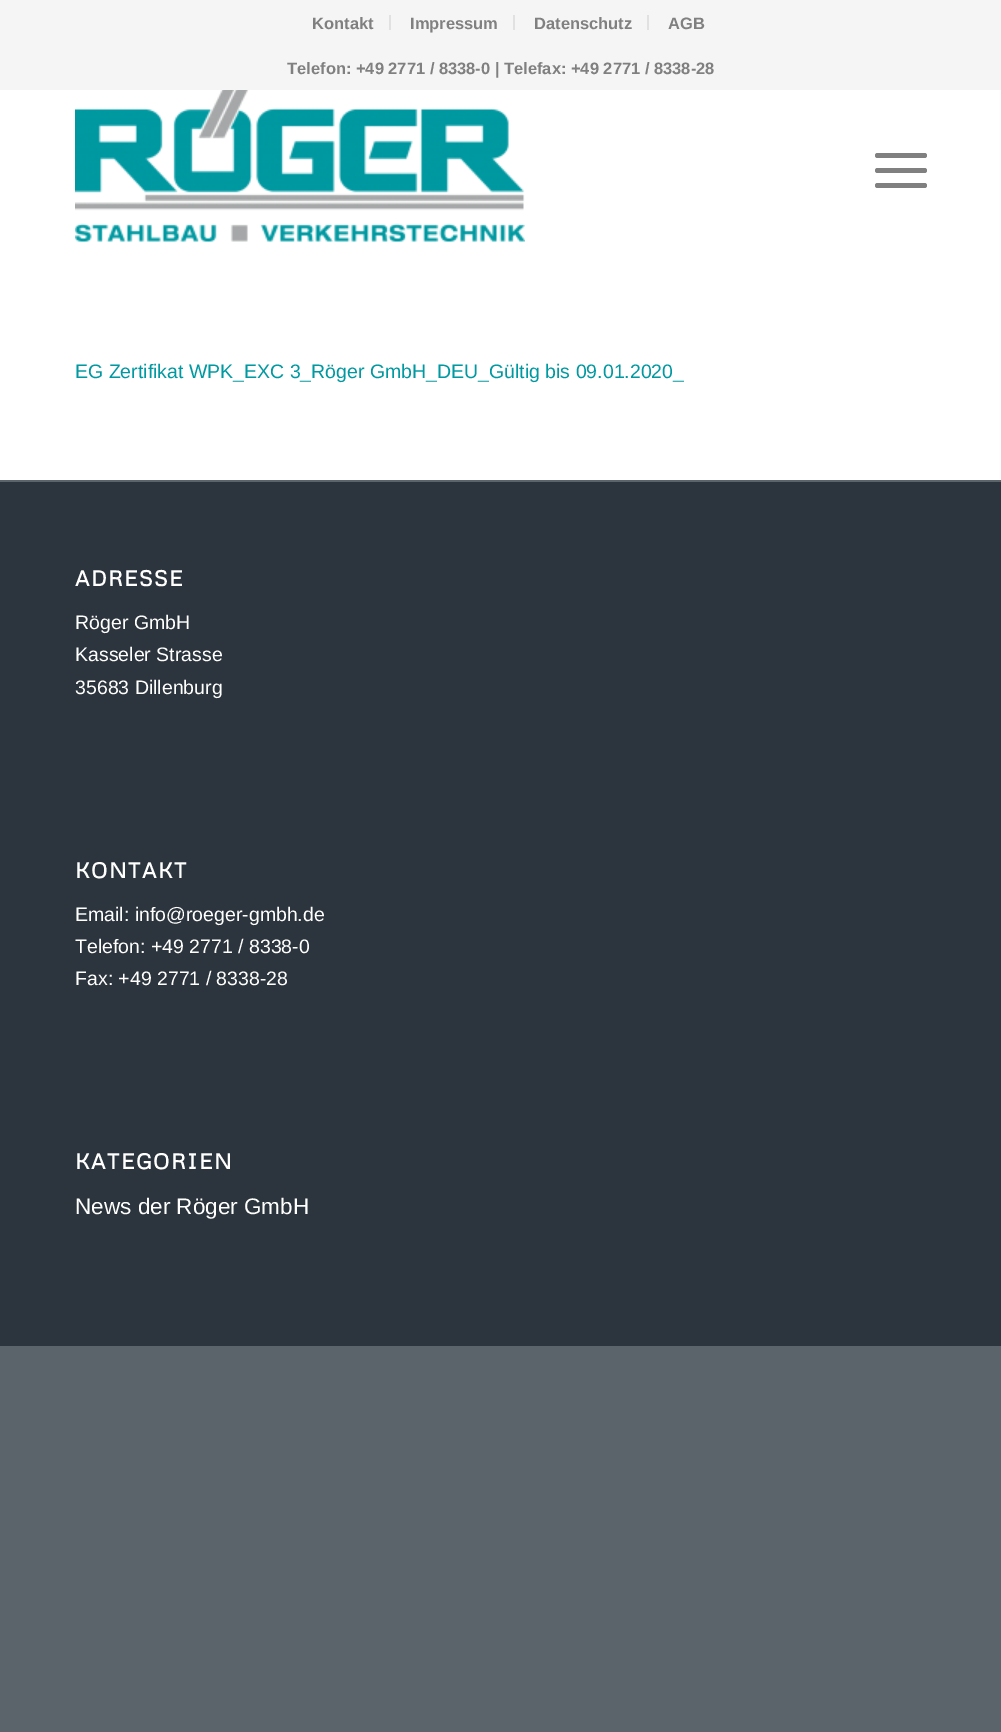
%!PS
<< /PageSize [1001 1732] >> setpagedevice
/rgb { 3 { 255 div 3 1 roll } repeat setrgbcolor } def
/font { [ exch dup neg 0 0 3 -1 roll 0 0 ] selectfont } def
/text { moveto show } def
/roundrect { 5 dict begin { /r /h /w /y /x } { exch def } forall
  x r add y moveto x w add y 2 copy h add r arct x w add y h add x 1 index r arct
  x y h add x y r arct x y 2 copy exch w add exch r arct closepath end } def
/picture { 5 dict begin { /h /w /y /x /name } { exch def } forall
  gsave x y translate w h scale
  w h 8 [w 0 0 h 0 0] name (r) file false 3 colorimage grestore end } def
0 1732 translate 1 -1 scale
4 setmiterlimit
91 100 107 rgb
0 0 1001 1732 rectfill
255 255 255 rgb
0 90 1001 390 rectfill
245 245 245 rgb
0 0 1001 90 rectfill
225 225 225 rgb
389 15 2 15 rectfill
513 15 2 15 rectfill
647 15 2 15 rectfill
(img_01.rgb) 75 90 450 152 picture
128 128 128 rgb
875 168 52 5 2.5 roundrect fill
875 153 52 5 2.5 roundrect fill
875 183 52 5 2.5 roundrect fill
44 53 61 rgb
0 482 1001 864 rectfill
/LiberationSans-Bold 16.5 font
128 128 128 rgb
(Kontakt) 312 29 text
(Impressum) 410 29 text
(Datenschutz) 534 29 text
(AGB) 668 29 text
(Telefon: +49 2771 / 8338-0 | Telefax: +49 2771 / 8338-28) 287 74 text
/LiberationSans-Regular 19.5 font
0 153 161 rgb
(EG Zertifikat WPK_EXC 3_Röger GmbH_DEU_Gültig bis 09.01.2020_) 75 378 text
/Metrophobic-Bold 21.5 font
255 255 255 rgb
75 586 moveto 1.5 0 (ADRESSE) ashow
/LiberationSans-Regular 19.5 font
(Röger GmbH) 75 629 text
(Kasseler Strasse) 75 661 text
(35683 Dillenburg) 75 694 text
/Metrophobic-Bold 21.5 font
75 878 moveto 1.5 0 (KONTAKT) ashow
/LiberationSans-Regular 19.5 font
(Email: info@roeger-gmbh.de) 75 921 text
(Telefon: +49 2771 / 8338-0) 75 953 text
(Fax: +49 2771 / 8338-28) 75 985 text
/Metrophobic-Bold 21.5 font
75 1169 moveto 1.5 0 (KATEGORIEN) ashow
/LiberationSans-Regular 22.5 font
(News der Röger GmbH) 75 1214 text
showpage
